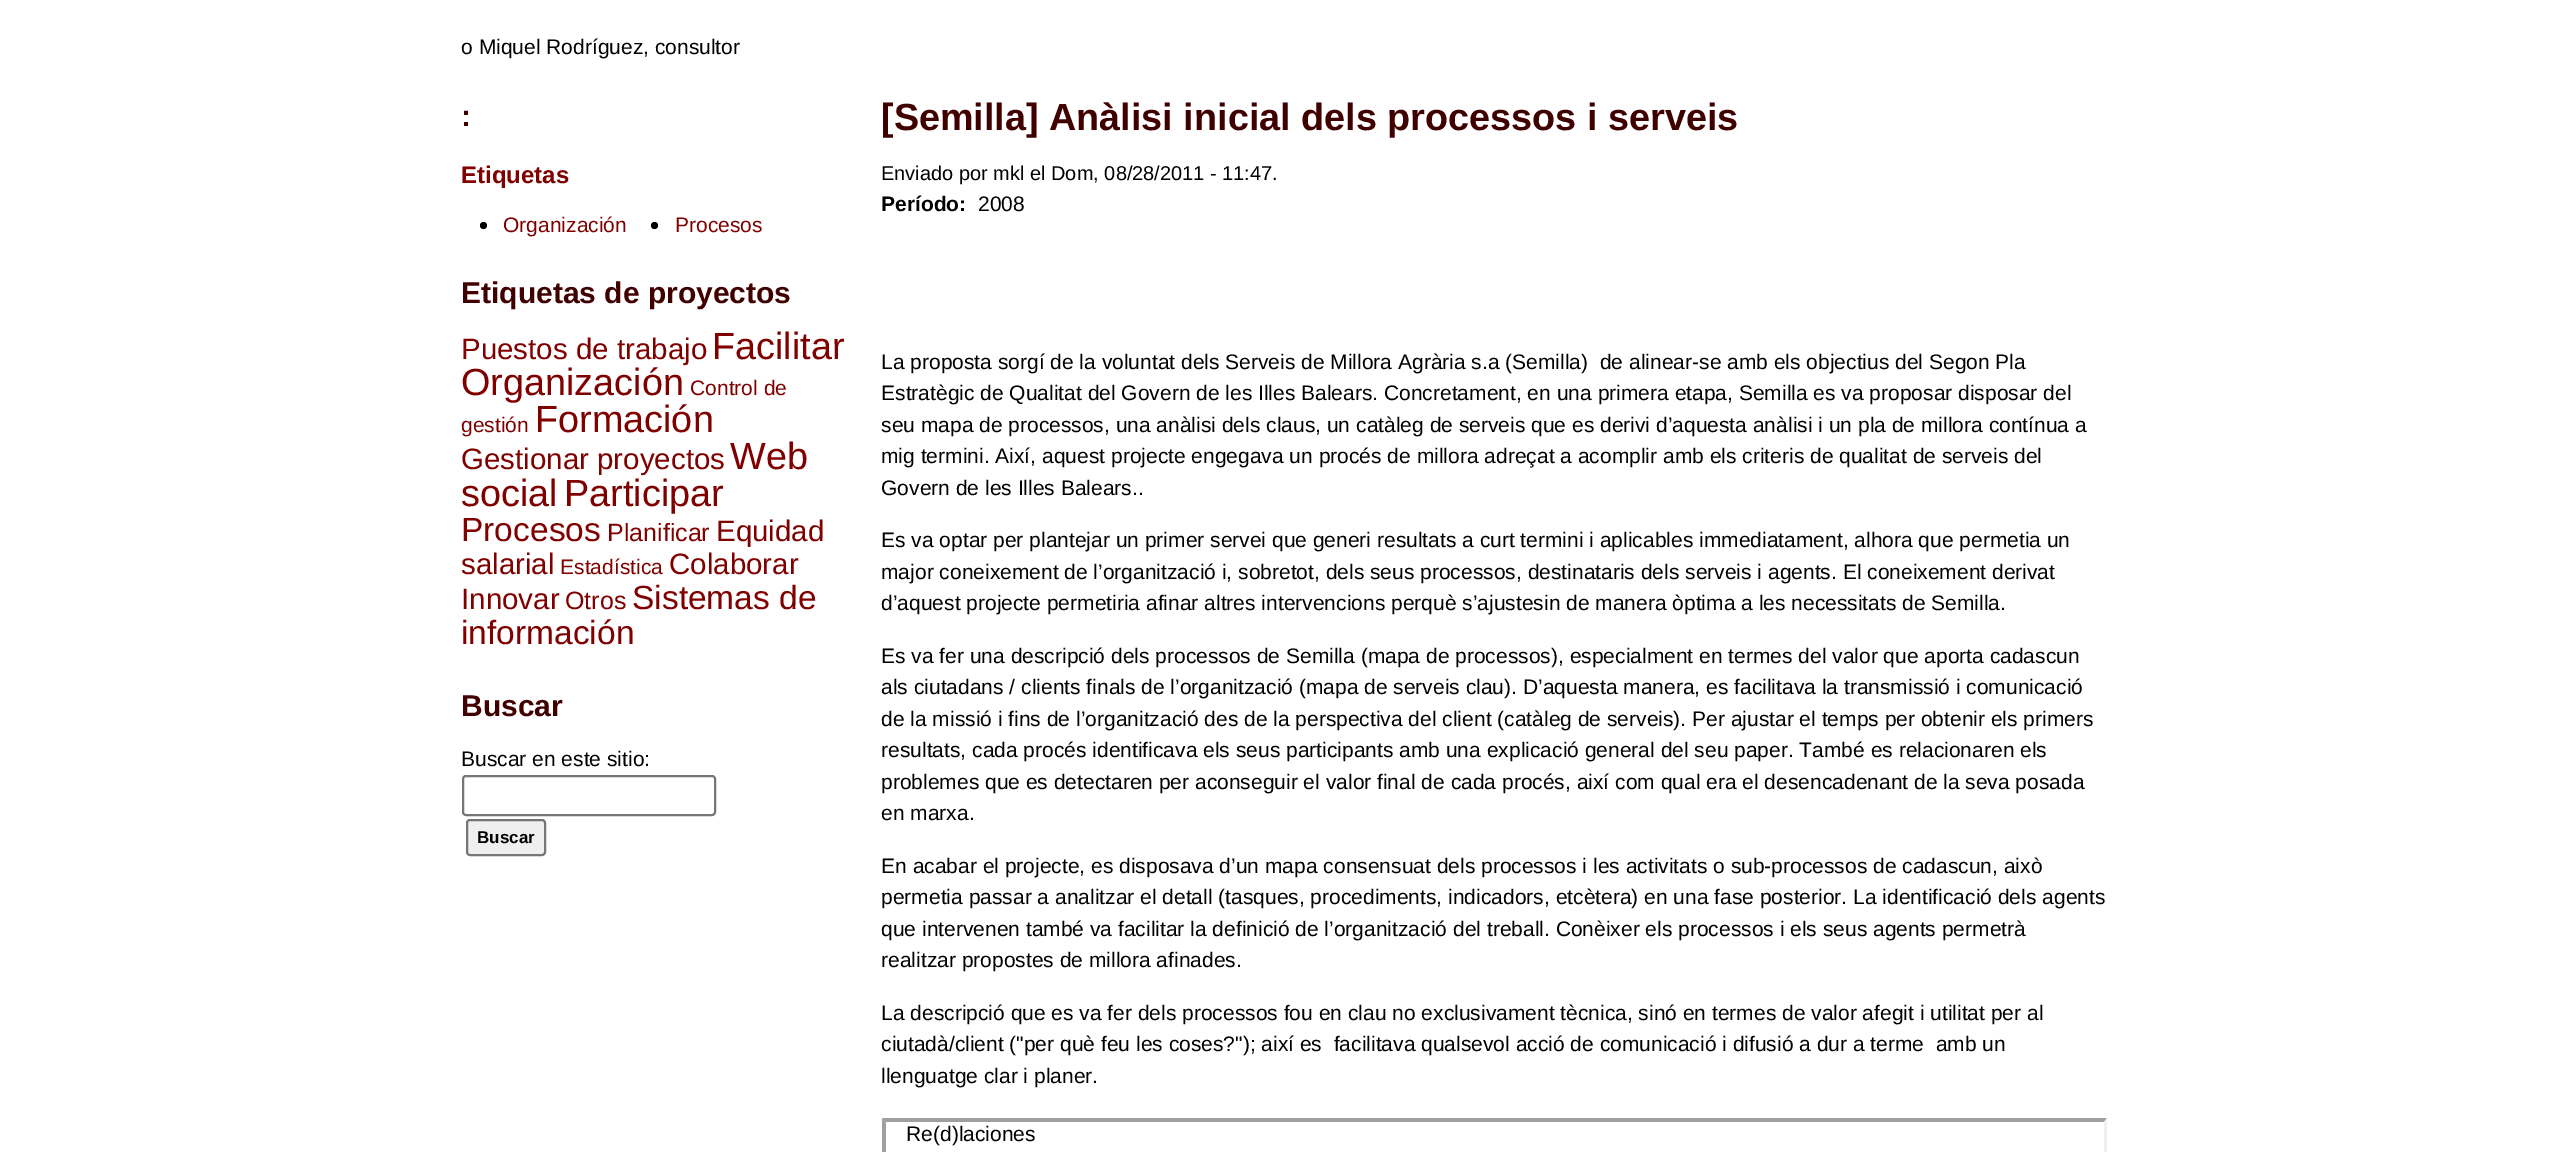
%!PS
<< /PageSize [2567 1152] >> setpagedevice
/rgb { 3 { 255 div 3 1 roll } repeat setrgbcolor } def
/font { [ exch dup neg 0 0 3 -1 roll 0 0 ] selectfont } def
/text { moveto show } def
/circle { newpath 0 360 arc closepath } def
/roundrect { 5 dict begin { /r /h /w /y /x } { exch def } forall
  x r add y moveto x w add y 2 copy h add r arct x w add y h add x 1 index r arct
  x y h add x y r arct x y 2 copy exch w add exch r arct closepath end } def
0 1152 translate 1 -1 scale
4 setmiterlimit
255 255 255 rgb
0 0 2567 1152 rectfill
0 0 0 rgb
483.5 225.5 3.5 circle fill
654.5 225.5 3.5 circle fill
118 118 118 rgb
2 setlinewidth
463 776 252 39 3 roundrect stroke
239 239 239 rgb
467 820 78 35 3 roundrect gsave fill grestore
118 118 118 rgb
stroke
159 159 159 rgb
882 1118 moveto 1225 0 rlineto -3 4 rlineto -1218 0 rlineto closepath fill
239 239 239 rgb
2107 1118 moveto 0 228 rlineto -3 -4 rlineto 0 -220 rlineto closepath fill
159 159 159 rgb
882 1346 moveto 0 -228 rlineto 4 4 rlineto 0 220 rlineto closepath fill
/LiberationSans-Regular 21 font
0 0 0 rgb
(o Miquel Rodríguez, consultor) 461 54 text
/LiberationSans-Bold 30 font
64 0 0 rgb
(:) 461 126 text
/LiberationSans-Bold 24 font
128 0 0 rgb
(Etiquetas) 461 183 text
/LiberationSans-Regular 21 font
(Organización) 503 232 text
(Procesos) 675 232 text
/LiberationSans-Bold 30 font
64 0 0 rgb
(Etiquetas de proyectos) 461 303 text
/LiberationSans-Regular 29.5 font
128 0 0 rgb
(Puestos de trabajo) 461 359 text
/LiberationSans-Regular 37.8 font
(Facilitar) 712 359 text
(Organización) 461 395 text
/LiberationSans-Regular 21 font
(Control de) 690 395 text
(gestión) 461 432 text
/LiberationSans-Regular 37.8 font
(Formación) 535 432 text
/LiberationSans-Regular 29.5 font
(Gestionar proyectos) 461 469 text
/LiberationSans-Regular 37.8 font
(Web) 730 469 text
(social) 461 506 text
(Participar) 564 506 text
/LiberationSans-Regular 33.5 font
(Procesos) 461 541 text
/LiberationSans-Regular 25 font
(Planificar) 607 541 text
/LiberationSans-Regular 29.5 font
(Equidad) 716 541 text
(salarial) 461 574 text
/LiberationSans-Regular 21 font
(Estadística) 560 574 text
/LiberationSans-Regular 29.5 font
(Colaborar) 669 574 text
(Innovar) 461 609 text
/LiberationSans-Regular 25 font
(Otros) 565 609 text
/LiberationSans-Regular 33.5 font
(Sistemas de) 632 609 text
(información) 461 644 text
/LiberationSans-Bold 30 font
64 0 0 rgb
(Buscar) 461 716 text
/LiberationSans-Regular 21 font
0 0 0 rgb
(Buscar en este sitio:) 461 766 text
/LiberationSans-Bold 17 font
(Buscar) 477 843 text
/LiberationSans-Bold 37.8 font
64 0 0 rgb
([Semilla] Anàlisi inicial dels processos i serveis) 881 130 text
/LiberationSans-Regular 20 font
0 0 0 rgb
(Enviado por mkl el Dom, 08/28/2011 - 11:47.) 881 180 text
/LiberationSans-Bold 21 font
(Período:) 881 211 text
/LiberationSans-Regular 21 font
(2008) 978 211 text
(La proposta sorgí de la voluntat dels Serveis de Millora Agrària s.a \(Semilla\)  de alinear-se amb els objectius del Segon Pla) 881 369 text
(Estratègic de Qualitat del Govern de les Illes Balears. Concretament, en una primera etapa, Semilla es va proposar disposar del) 881 400 text
(seu mapa de processos, una anàlisi dels claus, un catàleg de serveis que es derivi d’aquesta anàlisi i un pla de millora contínua a) 881 432 text
(mig termini. Així, aquest projecte engegava un procés de millora adreçat a acomplir amb els criteris de qualitat de serveis del) 881 463 text
(Govern de les Illes Balears..) 881 495 text
(Es va optar per plantejar un primer servei que generi resultats a curt termini i aplicables immediatament, alhora que permetia un) 881 547 text
(major coneixement de l’organització i, sobretot, dels seus processos, destinataris dels serveis i agents. El coneixement derivat) 881 579 text
(d’aquest projecte permetiria afinar altres intervencions perquè s’ajustesin de manera òptima a les necessitats de Semilla.) 881 610 text
(Es va fer una descripció dels processos de Semilla \(mapa de processos\), especialment en termes del valor que aporta cadascun) 881 663 text
(als ciutadans / clients finals de l’organització \(mapa de serveis clau\). D’aquesta manera, es facilitava la transmissió i comunicació) 881 694 text
(de la missió i fins de l’organització des de la perspectiva del client \(catàleg de serveis\). Per ajustar el temps per obtenir els primers) 881 726 text
(resultats, cada procés identificava els seus participants amb una explicació general del seu paper. També es relacionaren els) 881 757 text
(problemes que es detectaren per aconseguir el valor final de cada procés, així com qual era el desencadenant de la seva posada) 881 789 text
(en marxa.) 881 820 text
(En acabar el projecte, es disposava d’un mapa consensuat dels processos i les activitats o sub-processos de cadascun, això) 881 873 text
(permetia passar a analitzar el detall \(tasques, procediments, indicadors, etcètera\) en una fase posterior. La identificació dels agents) 881 904 text
(que intervenen també va facilitar la definició de l’organització del treball. Conèixer els processos i els seus agents permetrà) 881 936 text
(realitzar propostes de millora afinades.) 881 967 text
(La descripció que es va fer dels processos fou en clau no exclusivament tècnica, sinó en termes de valor afegit i utilitat per al) 881 1020 text
(ciutadà/client \("per què feu les coses?"\); així es  facilitava qualsevol acció de comunicació i difusió a dur a terme  amb un) 881 1051 text
(llenguatge clar i planer.) 881 1083 text
(Re\(d\)laciones) 906 1141 text
showpage
